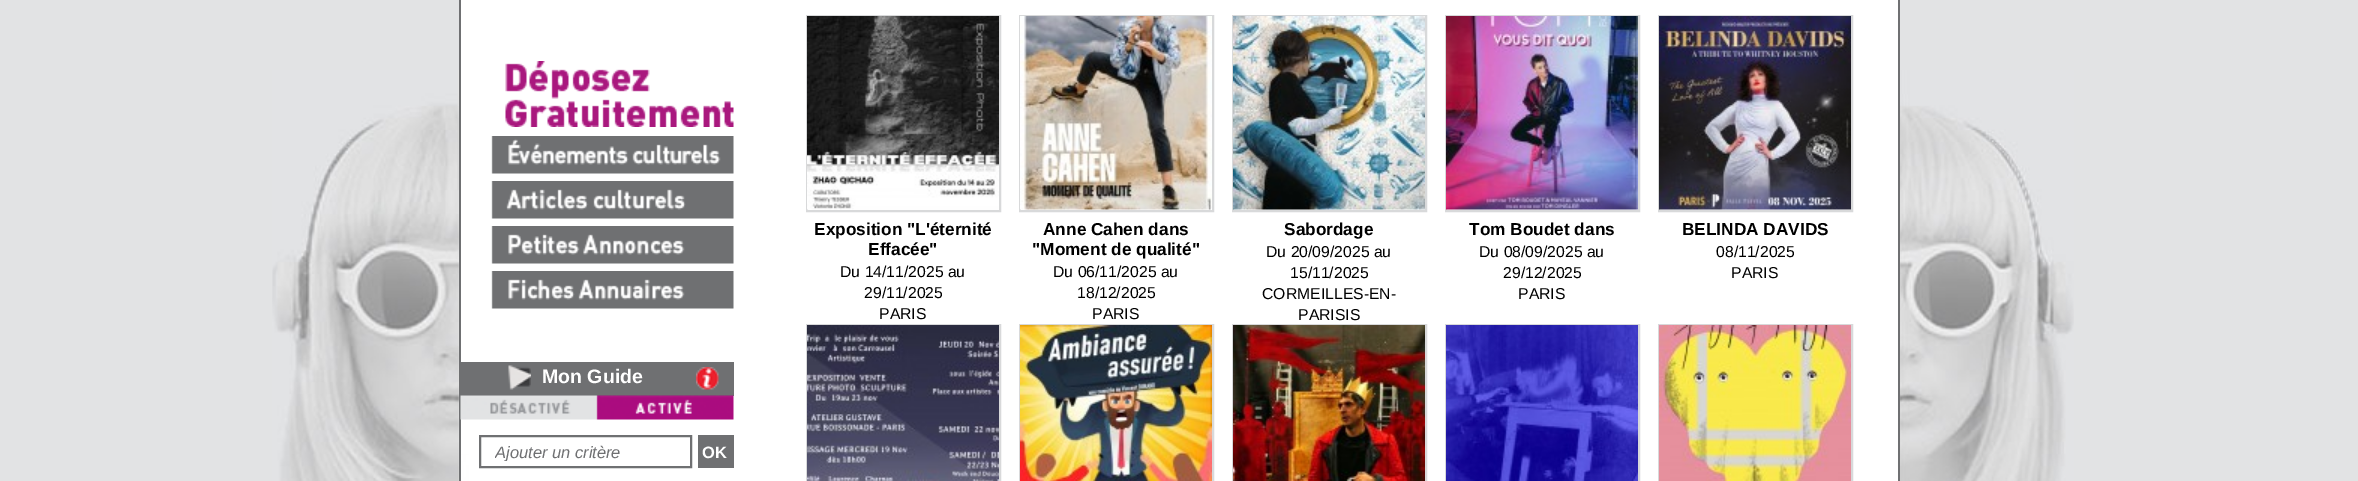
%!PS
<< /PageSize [2358 481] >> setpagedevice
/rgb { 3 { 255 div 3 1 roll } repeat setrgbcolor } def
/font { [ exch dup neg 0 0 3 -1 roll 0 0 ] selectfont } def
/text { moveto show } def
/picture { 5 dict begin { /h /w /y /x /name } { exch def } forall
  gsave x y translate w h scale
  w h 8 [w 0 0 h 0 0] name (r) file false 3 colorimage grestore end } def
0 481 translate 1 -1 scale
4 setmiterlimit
226 227 228 rgb
0 0 2358 481 rectfill
(img_01.rgb) 272 70 1802 411 picture
255 255 255 rgb
461 0 1437 454 rectfill
111 112 114 rgb
1898 0 2 481 rectfill
459 0 2 481 rectfill
216 217 218 rgb
2 setlinewidth
807 16 193 195 rectstroke
(img_02.rgb) 807 16 192 194 picture
1020 16 193 195 rectstroke
(img_03.rgb) 1020 16 192 194 picture
1233 16 193 195 rectstroke
(img_04.rgb) 1233 16 192 194 picture
1446 16 193 195 rectstroke
(img_05.rgb) 1446 16 192 194 picture
1659 16 193 195 rectstroke
(img_06.rgb) 1659 16 192 194 picture
807 325 193 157 rectstroke
(img_07.rgb) 807 325 192 156 picture
1020 325 193 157 rectstroke
(img_08.rgb) 1020 325 192 156 picture
1233 325 193 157 rectstroke
(img_09.rgb) 1233 325 192 156 picture
1446 325 193 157 rectstroke
(img_10.rgb) 1446 325 192 156 picture
1659 325 193 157 rectstroke
(img_11.rgb) 1659 325 192 156 picture
(img_12.rgb) 505 61 229 66 picture
(img_13.rgb) 491 136 243 38 picture
(img_14.rgb) 491 181 243 38 picture
(img_15.rgb) 491 226 243 38 picture
(img_16.rgb) 491 271 243 38 picture
111 112 114 rgb
461 362 273 34 rectfill
(img_17.rgb) 508 365 23 25 picture
(img_18.rgb) 696 367 23 23 picture
(img_19.rgb) 460 395 274 25 picture
480 436 211 31 rectstroke
698 435 36 33 rectfill
/LiberationSans-Bold 17.25 font
0 0 0 rgb
(Exposition "L'éternité) 814 235 text
(Effacée") 868 255 text
/LiberationSans-Regular 15.75 font
(Du 14/11/2025 au) 840 277 text
(29/11/2025) 864 298 text
(PARIS) 879 319 text
/LiberationSans-Bold 17.25 font
(Anne Cahen dans) 1043 235 text
("Moment de qualité") 1032 255 text
/LiberationSans-Regular 15.75 font
(Du 06/11/2025 au) 1053 277 text
(18/12/2025) 1077 298 text
(PARIS) 1092 319 text
/LiberationSans-Bold 17.25 font
(Sabordage) 1284 235 text
/LiberationSans-Regular 15.75 font
(Du 20/09/2025 au) 1266 257 text
(15/11/2025) 1290 278 text
(CORMEILLES-EN-) 1262 299 text
(PARISIS) 1298 320 text
/LiberationSans-Bold 17.25 font
(Tom Boudet dans) 1469 235 text
/LiberationSans-Regular 15.75 font
(Du 08/09/2025 au) 1479 257 text
(29/12/2025) 1503 278 text
(PARIS) 1518 299 text
/LiberationSans-Bold 17.25 font
(BELINDA DAVIDS) 1682 235 text
/LiberationSans-Regular 15.75 font
(08/11/2025) 1716 257 text
(PARIS) 1731 278 text
/LiberationSans-Bold 19.5 font
255 255 255 rgb
(Mon Guide) 542 383 text
gsave
495 443 195 18 rectclip
/LiberationSans-Italic 16.5 font
111 112 114 rgb
(Ajouter un critère) 495 458 text
grestore
/LiberationSans-Bold 16.5 font
(OK) 702 458 text
showpage
